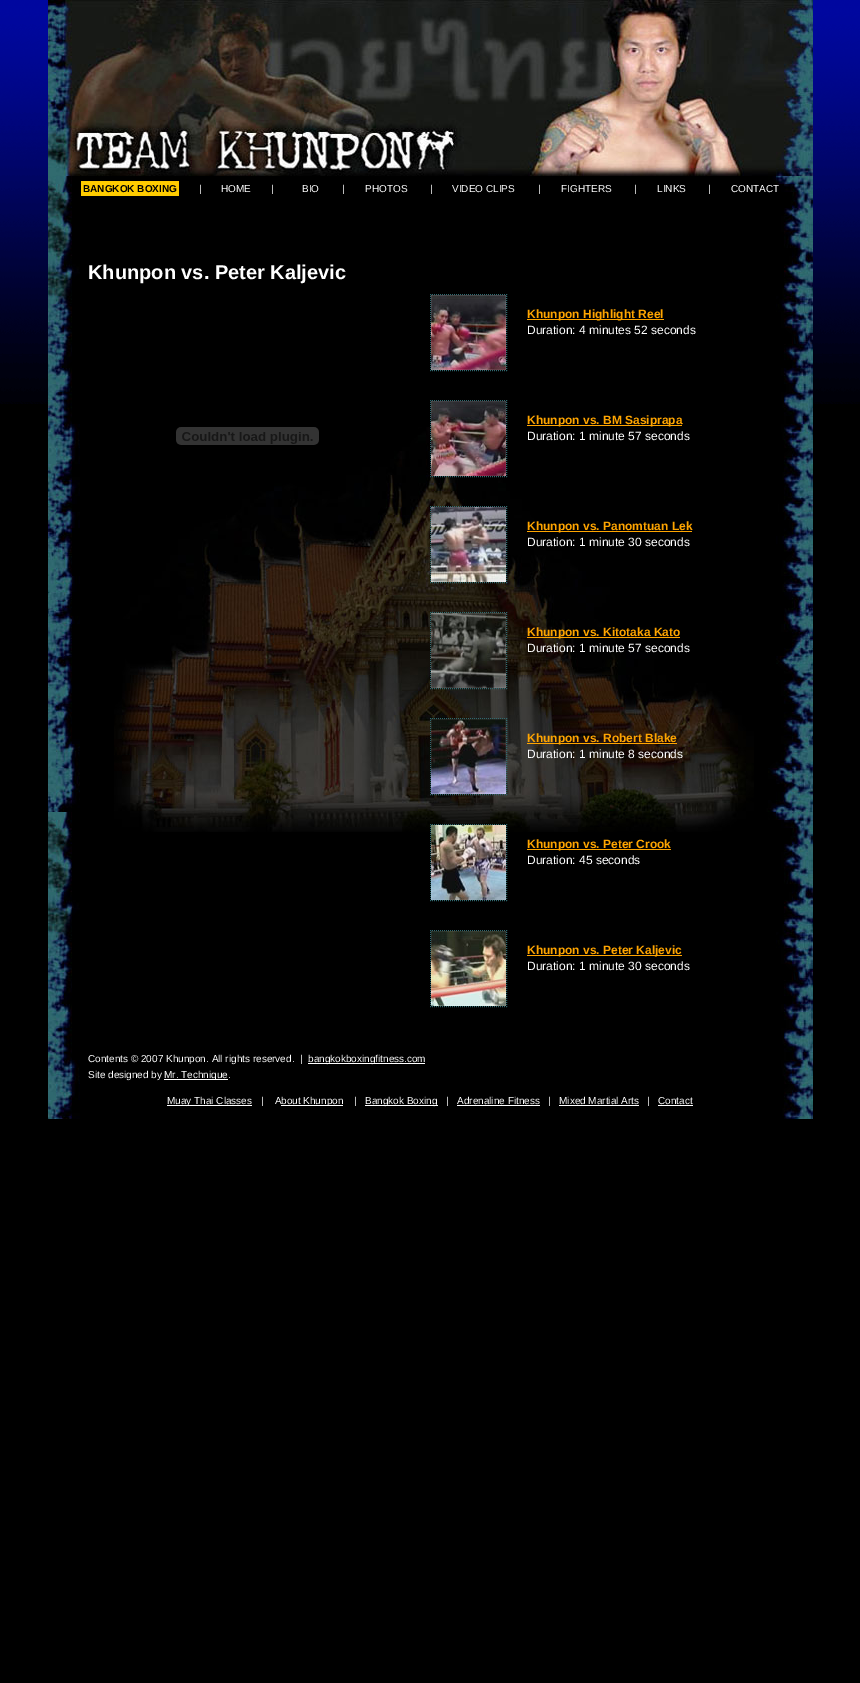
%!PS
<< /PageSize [860 1683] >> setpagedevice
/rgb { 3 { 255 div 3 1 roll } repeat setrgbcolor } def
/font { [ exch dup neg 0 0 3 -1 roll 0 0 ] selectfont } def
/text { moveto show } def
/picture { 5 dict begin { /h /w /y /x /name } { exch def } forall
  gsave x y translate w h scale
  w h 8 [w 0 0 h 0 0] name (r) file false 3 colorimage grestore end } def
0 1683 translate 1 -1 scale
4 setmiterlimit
0 0 0 rgb
0 0 860 1683 rectfill
(img_01.rgb) 0 0 860 404 picture
(img_02.rgb) 48 0 765 176 picture
(img_03.rgb) 48 176 765 943 picture
255 204 0 rgb
81 181 98 15 rectfill
(img_04.rgb) 114 427 640 405 picture
(img_05.rgb) 176 427 143 18 picture
48 105 111 rgb
[1 1] 0 setdash
430 294.5 moveto 77 0 rlineto stroke
506.5 294 moveto 0 77 rlineto stroke
430 370.5 moveto 77 0 rlineto stroke
430.5 294 moveto 0 77 rlineto stroke
(img_06.rgb) 431 295 75 75 picture
255 165 0 rgb
527 319 137 1 rectfill
48 105 111 rgb
430 400.5 moveto 77 0 rlineto stroke
506.5 400 moveto 0 77 rlineto stroke
430 476.5 moveto 77 0 rlineto stroke
430.5 400 moveto 0 77 rlineto stroke
(img_07.rgb) 431 401 75 75 picture
255 165 0 rgb
527 425 155 1 rectfill
48 105 111 rgb
430 506.5 moveto 77 0 rlineto stroke
506.5 506 moveto 0 77 rlineto stroke
430 582.5 moveto 77 0 rlineto stroke
430.5 506 moveto 0 77 rlineto stroke
(img_08.rgb) 431 507 75 75 picture
255 165 0 rgb
527 531 165 1 rectfill
48 105 111 rgb
430 612.5 moveto 77 0 rlineto stroke
506.5 612 moveto 0 77 rlineto stroke
430 688.5 moveto 77 0 rlineto stroke
430.5 612 moveto 0 77 rlineto stroke
(img_09.rgb) 431 613 75 75 picture
255 165 0 rgb
527 637 153 1 rectfill
48 105 111 rgb
430 718.5 moveto 77 0 rlineto stroke
506.5 718 moveto 0 77 rlineto stroke
430 794.5 moveto 77 0 rlineto stroke
430.5 718 moveto 0 77 rlineto stroke
(img_10.rgb) 431 719 75 75 picture
255 165 0 rgb
527 743 150 1 rectfill
48 105 111 rgb
430 824.5 moveto 77 0 rlineto stroke
506.5 824 moveto 0 77 rlineto stroke
430 900.5 moveto 77 0 rlineto stroke
430.5 824 moveto 0 77 rlineto stroke
(img_11.rgb) 431 825 75 75 picture
255 165 0 rgb
527 849 144 1 rectfill
48 105 111 rgb
430 930.5 moveto 77 0 rlineto stroke
506.5 930 moveto 0 77 rlineto stroke
430 1006.5 moveto 77 0 rlineto stroke
430.5 930 moveto 0 77 rlineto stroke
(img_12.rgb) 431 931 75 75 picture
255 165 0 rgb
527 955 155 1 rectfill
255 255 255 rgb
308 1063 117 1 rectfill
164 1079 64 1 rectfill
167 1105 85 1 rectfill
281 1105 62 1 rectfill
365 1105 73 1 rectfill
457 1105 83 1 rectfill
559 1105 80 1 rectfill
658 1105 35 1 rectfill
/LiberationSans-Bold 10 font
0 0 0 rgb
(BANGKOK BOXING) 83 192 text
/LiberationSans-Regular 10 font
255 255 255 rgb
(|) 199 192 text
(HOME) 221 192 text
(|) 271 192 text
(BIO) 302 192 text
(|) 342 192 text
(PHOTOS) 365 192 text
(|) 430 192 text
(VIDEO CLIPS) 452 192 text
(|) 538 192 text
(FIGHTERS) 561 192 text
(|) 634 192 text
(LINKS) 657 192 text
(|) 708 192 text
(CONTACT) 731 192 text
/LiberationSans-Bold 20 font
(Khunpon vs. Peter Kaljevic) 88 279 text
/LiberationSans-Bold 12 font
255 165 0 rgb
(Khunpon Highlight Reel) 527 318 text
/LiberationSans-Regular 12 font
255 255 255 rgb
(Duration: 4 minutes 52 seconds) 527 334 text
/LiberationSans-Bold 12 font
255 165 0 rgb
(Khunpon vs. BM Sasiprapa) 527 424 text
/LiberationSans-Regular 12 font
255 255 255 rgb
(Duration: 1 minute 57 seconds) 527 440 text
/LiberationSans-Bold 12 font
255 165 0 rgb
(Khunpon vs. Panomtuan Lek) 527 530 text
/LiberationSans-Regular 12 font
255 255 255 rgb
(Duration: 1 minute 30 seconds) 527 546 text
/LiberationSans-Bold 12 font
255 165 0 rgb
(Khunpon vs. Kitotaka Kato) 527 636 text
/LiberationSans-Regular 12 font
255 255 255 rgb
(Duration: 1 minute 57 seconds) 527 652 text
/LiberationSans-Bold 12 font
255 165 0 rgb
(Khunpon vs. Robert Blake) 527 742 text
/LiberationSans-Regular 12 font
255 255 255 rgb
(Duration: 1 minute 8 seconds) 527 758 text
/LiberationSans-Bold 12 font
255 165 0 rgb
(Khunpon vs. Peter Crook) 527 848 text
/LiberationSans-Regular 12 font
255 255 255 rgb
(Duration: 45 seconds) 527 864 text
/LiberationSans-Bold 12 font
255 165 0 rgb
(Khunpon vs. Peter Kaljevic) 527 954 text
/LiberationSans-Regular 12 font
255 255 255 rgb
(Duration: 1 minute 30 seconds) 527 970 text
/LiberationSans-Regular 10 font
(Contents © 2007 Khunpon. All rights reserved.  |) 88 1062 text
(bangkokboxingfitness.com) 308 1062 text
(Site designed by) 88 1078 text
(Mr. Technique.) 164 1078 text
(Muay Thai Classes) 167 1104 text
(|    A) 261 1104 text
(bout Khunpon) 281 1104 text
(|) 354 1104 text
(Bangkok Boxing) 365 1104 text
(|) 446 1104 text
(Adrenaline Fitness) 457 1104 text
(|) 548 1104 text
(Mixed Martial Arts) 559 1104 text
(|) 647 1104 text
(Contact) 658 1104 text
showpage
